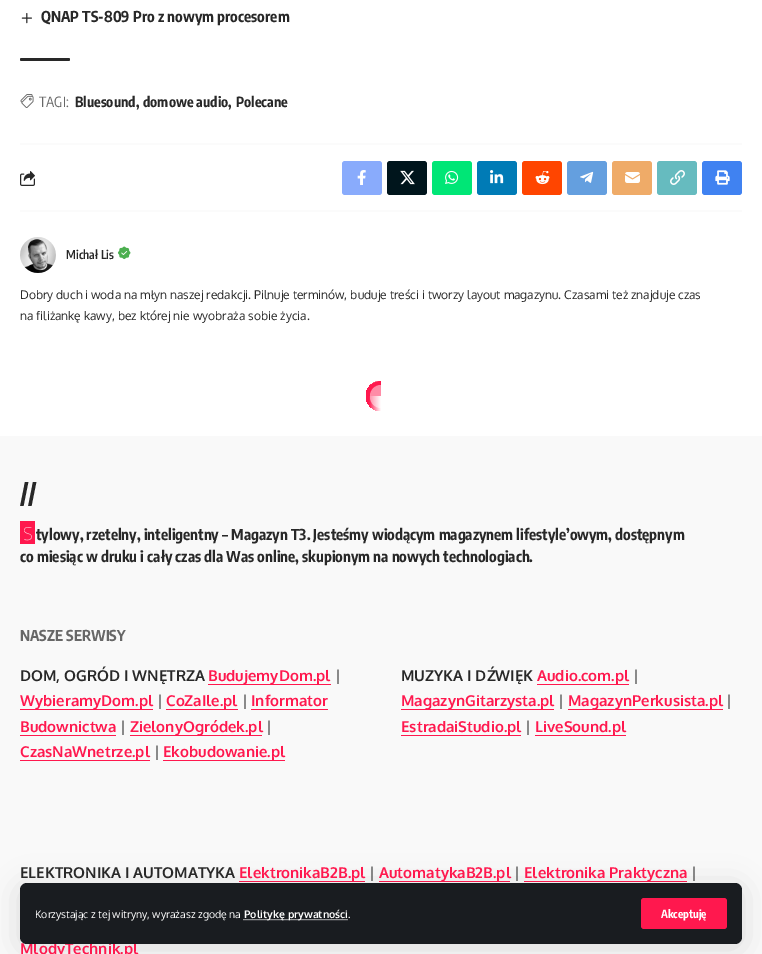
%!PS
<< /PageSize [762 954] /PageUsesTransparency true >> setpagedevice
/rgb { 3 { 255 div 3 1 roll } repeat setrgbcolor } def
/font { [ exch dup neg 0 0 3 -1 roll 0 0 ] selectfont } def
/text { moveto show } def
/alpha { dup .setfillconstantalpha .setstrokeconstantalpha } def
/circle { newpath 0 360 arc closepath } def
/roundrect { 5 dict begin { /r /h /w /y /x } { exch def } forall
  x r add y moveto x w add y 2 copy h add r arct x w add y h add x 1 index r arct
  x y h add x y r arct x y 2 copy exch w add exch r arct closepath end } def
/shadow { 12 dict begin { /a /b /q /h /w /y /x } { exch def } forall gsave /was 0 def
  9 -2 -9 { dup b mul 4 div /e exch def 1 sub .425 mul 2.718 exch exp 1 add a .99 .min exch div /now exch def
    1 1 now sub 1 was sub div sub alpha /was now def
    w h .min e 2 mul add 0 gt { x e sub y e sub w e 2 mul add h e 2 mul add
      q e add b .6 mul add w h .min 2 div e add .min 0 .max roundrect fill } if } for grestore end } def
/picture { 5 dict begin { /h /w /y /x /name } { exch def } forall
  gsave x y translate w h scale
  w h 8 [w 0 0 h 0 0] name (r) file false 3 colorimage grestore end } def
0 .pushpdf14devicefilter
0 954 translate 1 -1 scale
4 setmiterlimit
255 255 255 rgb
0 0 762 954 rectfill
(img_01.rgb) 21 13 11 11 picture
40 40 40 rgb
20 58 50 3 1.5 roundrect fill
(img_02.rgb) 20 94 14 14 picture
251 251 251 rgb
20 143 722 2 rectfill
(img_03.rgb) 20 171 15 15 picture
137 171 252 rgb
342 161 40 34 3 roundrect fill
(img_04.rgb) 357 170 9 15 picture
0 21 28 rgb
387 161 40 34 3 roundrect fill
(img_05.rgb) 400 170 15 15 picture
0 230 118 rgb
432 161 40 34 3 roundrect fill
(img_06.rgb) 445 170 14 14 picture
0 123 182 rgb
477 161 40 34 3 roundrect fill
(img_07.rgb) 490 170 14 14 picture
255 69 0 rgb
522 161 40 34 3 roundrect fill
(img_08.rgb) 535 171 15 14 picture
100 159 223 rgb
567 161 40 34 3 roundrect fill
(img_09.rgb) 580 171 14 12 picture
239 171 104 rgb
612 161 40 34 3 roundrect fill
(img_10.rgb) 625 172 15 11 picture
102 187 191 rgb
657 161 40 34 3 roundrect fill
(img_11.rgb) 670 170 15 15 picture
64 130 241 rgb
702 161 40 34 3 roundrect fill
(img_12.rgb) 715 170 15 15 picture
251 251 251 rgb
20 210 722 2 rectfill
(img_13.rgb) 20 237 36 36 picture
(img_14.rgb) 117 246 14 14 picture
gsave 381 396 15 circle clip newpath
<< /ShadingType 2 /ColorSpace /DeviceRGB /Coords [366 396 396 396] /Extend [true true] /Function << /FunctionType 3 /Domain [0 1] /Functions [<< /FunctionType 2 /Domain [0 1] /C0 [1 0.094 0.306] /C1 [1 0.094 0.306] /N 1 >> << /FunctionType 2 /Domain [0 1] /C0 [1 0.094 0.306] /C1 [1 1 1] /N 1 >> << /FunctionType 2 /Domain [0 1] /C0 [1 1 1] /C1 [1 1 1] /N 1 >>] /Bounds [0.1 0.5] /Encode [0 1 0 1 0 1] >> >> shfill grestore
255 24 78 rgb
381 381 moveto 0 15 rlineto -15 0 rlineto 0 -8.5 6.5 -15 15 -15 rcurveto closepath fill
0.5 alpha
255 255 255 rgb
370 385 22 23 11 roundrect fill
1 alpha
249 249 249 rgb
0 436 762 518 rectfill
255 24 78 rgb
20 521 15 23 rectfill
208 684 123 1 rectfill
20 709 133 1 rectfill
166 709 72 1 rectfill
251 709 77 1 rectfill
20 735 96 1 rectfill
130 735 132 1 rectfill
20 760 130 1 rectfill
163 760 122 1 rectfill
537 684 92 1 rectfill
401 709 153 1 rectfill
568 709 155 1 rectfill
401 735 120 1 rectfill
535 735 91 1 rectfill
239 881 126 1 rectfill
379 881 131 1 rectfill
524 881 163 1 rectfill
0 0 0 rgb
20 887 722 61 7 15 0.12 shadow
/EncodeSansCondensed-Bold 15 font
40 40 40 rgb
(QNAP TS-809 Pro z nowym procesorem) 41 22 text
/EncodeSansCondensed-Regular 14 font
103 103 103 rgb
(TAGI:) 39 107 text
/EncodeSansCondensed-Bold 14 font
40 40 40 rgb
(Bluesound,) 75 107 text
(domowe audio,) 143 107 text
(Polecane) 236 107 text
/EncodeSansCondensed-SemiBold 12 font
(Michał Lis) 66 259 text
/Oxygen-Regular 12 font
(Dobry duch i woda na młyn naszej redakcji. Pilnuje terminów, buduje treści i tworzy layout magazynu. Czasami też znajduje czas) 20 299 text
(na filiżankę kawy, bez której nie wyobraża sobie życia.) 20 320 text
/EncodeSansCondensed-Bold 26 font
(//) 20 503 text
/NotoSans-Thin 18 font
255 255 255 rgb
(S) 23 540 text
/EncodeSansCondensed-Bold 15 font
40 40 40 rgb
(tylowy, rzetelny, inteligentny – Magazyn T3. Jesteśmy wiodącym magazynem lifestyle’owym, dostępnym) 36 540 text
(co miesiąc w druku i cały czas dla Was online, skupionym na nowych technologiach.) 20 562 text
103 103 103 rgb
(NASZE SERWISY) 20 641 text
/Oxygen-Bold 15 font
40 40 40 rgb
(DOM, OGRÓD I WNĘTRZA) 20 681 text
255 24 78 rgb
(BudujemyDom.pl) 208 681 text
/Oxygen-Regular 15 font
40 40 40 rgb
(|) 335 681 text
/Oxygen-Bold 15 font
255 24 78 rgb
(WybieramyDom.pl) 20 706 text
/Oxygen-Regular 15 font
40 40 40 rgb
(|) 157 706 text
/Oxygen-Bold 15 font
255 24 78 rgb
(CoZaIle.pl) 166 706 text
/Oxygen-Regular 15 font
40 40 40 rgb
(|) 242 706 text
/Oxygen-Bold 15 font
255 24 78 rgb
(Informator) 251 706 text
(Budownictwa) 20 732 text
/Oxygen-Regular 15 font
40 40 40 rgb
(|) 120 732 text
/Oxygen-Bold 15 font
255 24 78 rgb
(ZielonyOgródek.pl) 130 732 text
/Oxygen-Regular 15 font
40 40 40 rgb
(|) 266 732 text
/Oxygen-Bold 15 font
255 24 78 rgb
(CzasNaWnetrze.pl) 20 757 text
/Oxygen-Regular 15 font
40 40 40 rgb
(|) 154 757 text
/Oxygen-Bold 15 font
255 24 78 rgb
(Ekobudowanie.pl) 163 757 text
40 40 40 rgb
(MUZYKA I DŹWIĘK) 401 681 text
255 24 78 rgb
(Audio.com.pl) 537 681 text
/Oxygen-Regular 15 font
40 40 40 rgb
(|) 633 681 text
/Oxygen-Bold 15 font
255 24 78 rgb
(MagazynGitarzysta.pl) 401 706 text
/Oxygen-Regular 15 font
40 40 40 rgb
(|) 558 706 text
/Oxygen-Bold 15 font
255 24 78 rgb
(MagazynPerkusista.pl) 568 706 text
/Oxygen-Regular 15 font
40 40 40 rgb
(|) 726 706 text
/Oxygen-Bold 15 font
255 24 78 rgb
(EstradaiStudio.pl) 401 732 text
/Oxygen-Regular 15 font
40 40 40 rgb
(|) 525 732 text
/Oxygen-Bold 15 font
255 24 78 rgb
(LiveSound.pl) 535 732 text
40 40 40 rgb
(ELEKTRONIKA I AUTOMATYKA) 20 878 text
255 24 78 rgb
(ElektronikaB2B.pl) 239 878 text
/Oxygen-Regular 15 font
40 40 40 rgb
(|) 369 878 text
/Oxygen-Bold 15 font
255 24 78 rgb
(AutomatykaB2B.pl) 379 878 text
/Oxygen-Regular 15 font
40 40 40 rgb
(|) 514 878 text
/Oxygen-Bold 15 font
255 24 78 rgb
(Elektronika Praktyczna) 524 878 text
/Oxygen-Regular 15 font
40 40 40 rgb
(|) 691 878 text
/Oxygen-Bold 15 font
255 24 78 rgb
(MlodyTechnik.pl) 20 954 text
25 28 32 rgb
20 883 722 61 7 roundrect fill
/Oxygen-Regular 10.5 font
255 255 255 rgb
(Korzystając z tej witryny, wyrażasz zgodę na) 35 918 text
[1 1] 0 setdash
243.5 919.5 moveto 104.5 0 rlineto stroke
/Oxygen-Bold 10.5 font
(Politykę prywatności) 244 918 text
/Oxygen-Regular 10.5 font
(.) 348 918 text
255 24 78 rgb
641 898 86 31 3 roundrect fill
/EncodeSansCondensed-Bold 11 font
255 255 255 rgb
(Akceptuję) 661 918 text
.poppdf14devicefilter showpage
